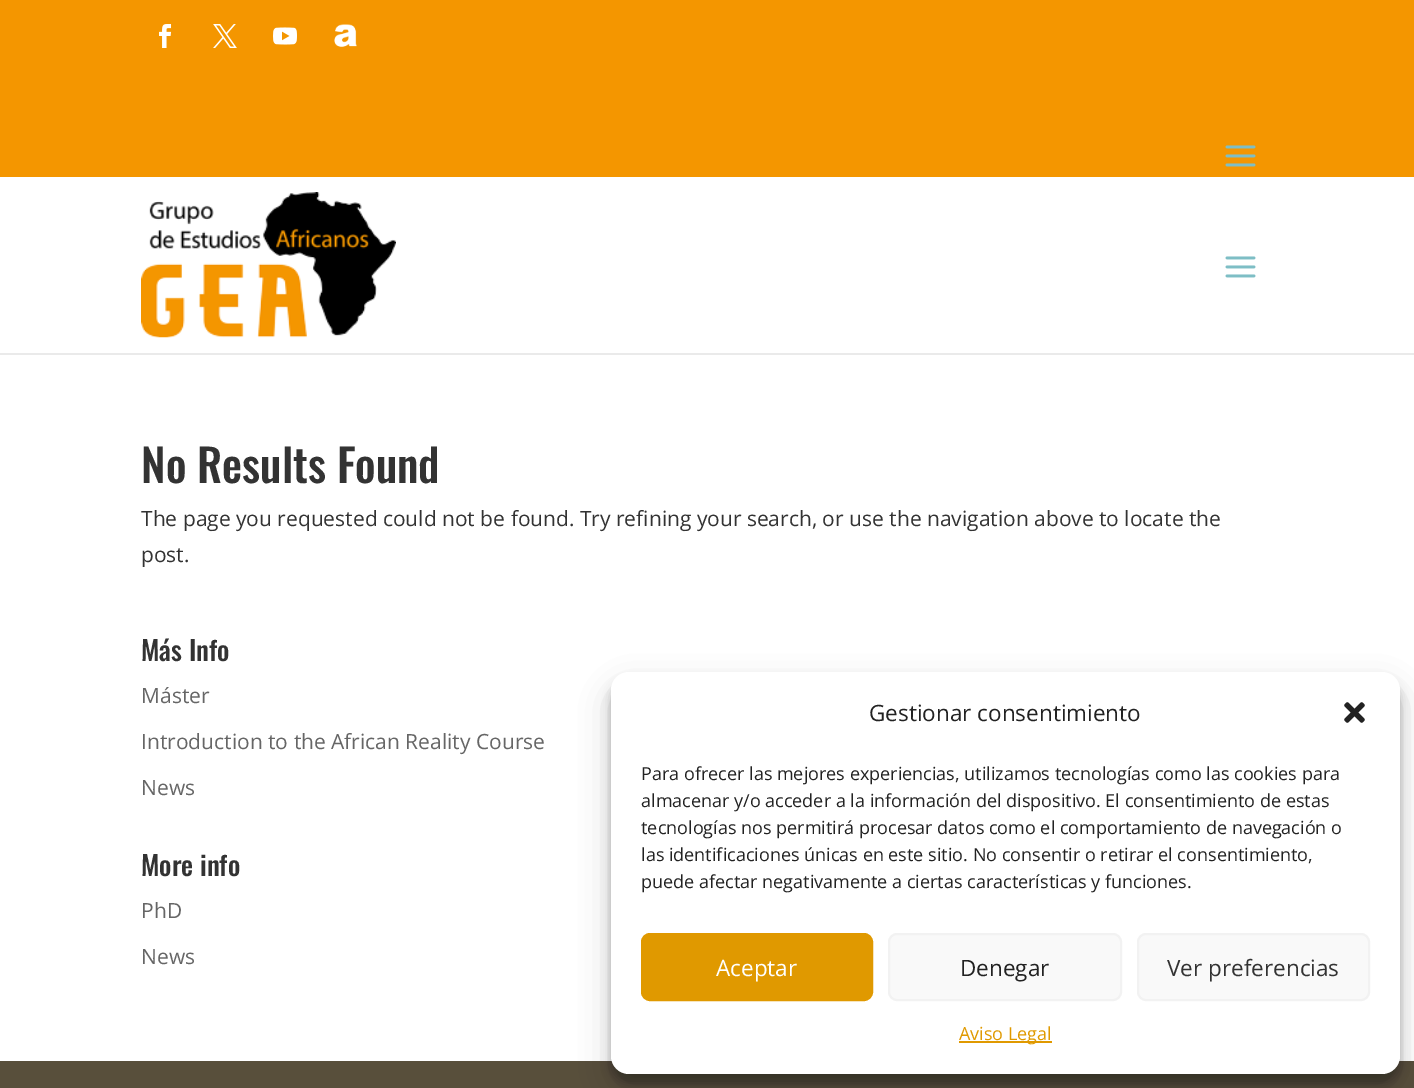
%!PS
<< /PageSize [1414 1088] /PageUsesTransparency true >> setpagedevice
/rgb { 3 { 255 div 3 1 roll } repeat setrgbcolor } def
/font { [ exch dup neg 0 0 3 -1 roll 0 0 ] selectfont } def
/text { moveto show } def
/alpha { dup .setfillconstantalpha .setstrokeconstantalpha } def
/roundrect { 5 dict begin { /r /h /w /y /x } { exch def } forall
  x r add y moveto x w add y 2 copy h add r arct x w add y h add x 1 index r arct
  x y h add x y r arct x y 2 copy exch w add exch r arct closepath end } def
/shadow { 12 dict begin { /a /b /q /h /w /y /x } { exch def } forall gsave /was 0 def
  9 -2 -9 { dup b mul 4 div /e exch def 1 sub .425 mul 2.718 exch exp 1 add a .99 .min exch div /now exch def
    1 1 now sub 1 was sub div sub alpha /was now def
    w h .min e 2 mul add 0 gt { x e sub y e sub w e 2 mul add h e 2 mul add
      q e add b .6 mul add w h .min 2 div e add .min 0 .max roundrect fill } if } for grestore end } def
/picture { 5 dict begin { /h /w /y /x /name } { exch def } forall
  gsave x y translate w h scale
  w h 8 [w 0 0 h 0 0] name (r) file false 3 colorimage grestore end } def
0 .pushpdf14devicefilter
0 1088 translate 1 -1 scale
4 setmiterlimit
255 255 255 rgb
0 0 1414 1088 rectfill
244 150 0 rgb
0 0 1414 177 rectfill
(img_01.rgb) 159 24 13 24 picture
(img_02.rgb) 213 24 24 24 picture
(img_03.rgb) 273 27 24 18 picture
(img_04.rgb) 334 24 23 23 picture
(img_05.rgb) 1225 145 31 22 picture
234 234 234 rgb
0 353 1414 2 rectfill
(img_06.rgb) 141 192 255 146 picture
(img_07.rgb) 1225 256 31 22 picture
88 79 59 rgb
0 1061 1414 27 rectfill
0 0 0 rgb
611 681 789 402 18 4.5 0.23 shadow
611 687 789 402 18 15 0.19 shadow
255 255 255 rgb
611 672 789 402 18 roundrect fill
(img_08.rgb) 1344 702 21 21 picture
224 153 0 rgb
642 934 230 66 8 roundrect gsave fill grestore
2 setlinewidth
stroke
249 249 249 rgb
889 934 232 66 8 roundrect gsave fill grestore
242 242 242 rgb
stroke
249 249 249 rgb
1138 934 231 66 8 roundrect gsave fill grestore
242 242 242 rgb
stroke
224 153 0 rgb
959 1041 93 2 rectfill
/Oswald-Medium 45 font
51 51 51 rgb
(No Results Found) 141 483 text
/OpenSans-Regular 21 font
(The page you requested could not be found. Try refining your search, or use the navigation above to locate the) 141 526 text
(post.) 141 562 text
/Oswald-Medium 27 font
(Más Info) 141 661 text
/OpenSans-Regular 21 font
102 102 102 rgb
(Máster) 141 703 text
(Introduction to the African Reality Course) 141 749 text
(News) 141 795 text
/Oswald-Medium 27 font
51 51 51 rgb
(More info) 141 876 text
/OpenSans-Regular 21 font
102 102 102 rgb
(PhD) 141 918 text
(News) 141 964 text
/OpenSans-Regular 22.5 font
34 34 34 rgb
(Gestionar consentimiento) 869 721 text
/OpenSans-Regular 18 font
(Para ofrecer las mejores experiencias, utilizamos tecnologías como las cookies para) 641 780 text
(almacenar y/o acceder a la información del dispositivo. El consentimiento de estas) 641 807 text
(tecnologías nos permitirá procesar datos como el comportamiento de navegación o) 641 834 text
(las identificaciones únicas en este sitio. No consentir o retirar el consentimiento,) 641 861 text
(puede afectar negativamente a ciertas características y funciones.) 641 888 text
/OpenSans-Regular 22.5 font
255 255 255 rgb
(Aceptar) 716 976 text
34 34 34 rgb
(Denegar) 960 976 text
51 51 51 rgb
(Ver preferencias) 1167 976 text
/OpenSans-Regular 18 font
224 153 0 rgb
(Aviso Legal) 959 1040 text
.poppdf14devicefilter showpage
